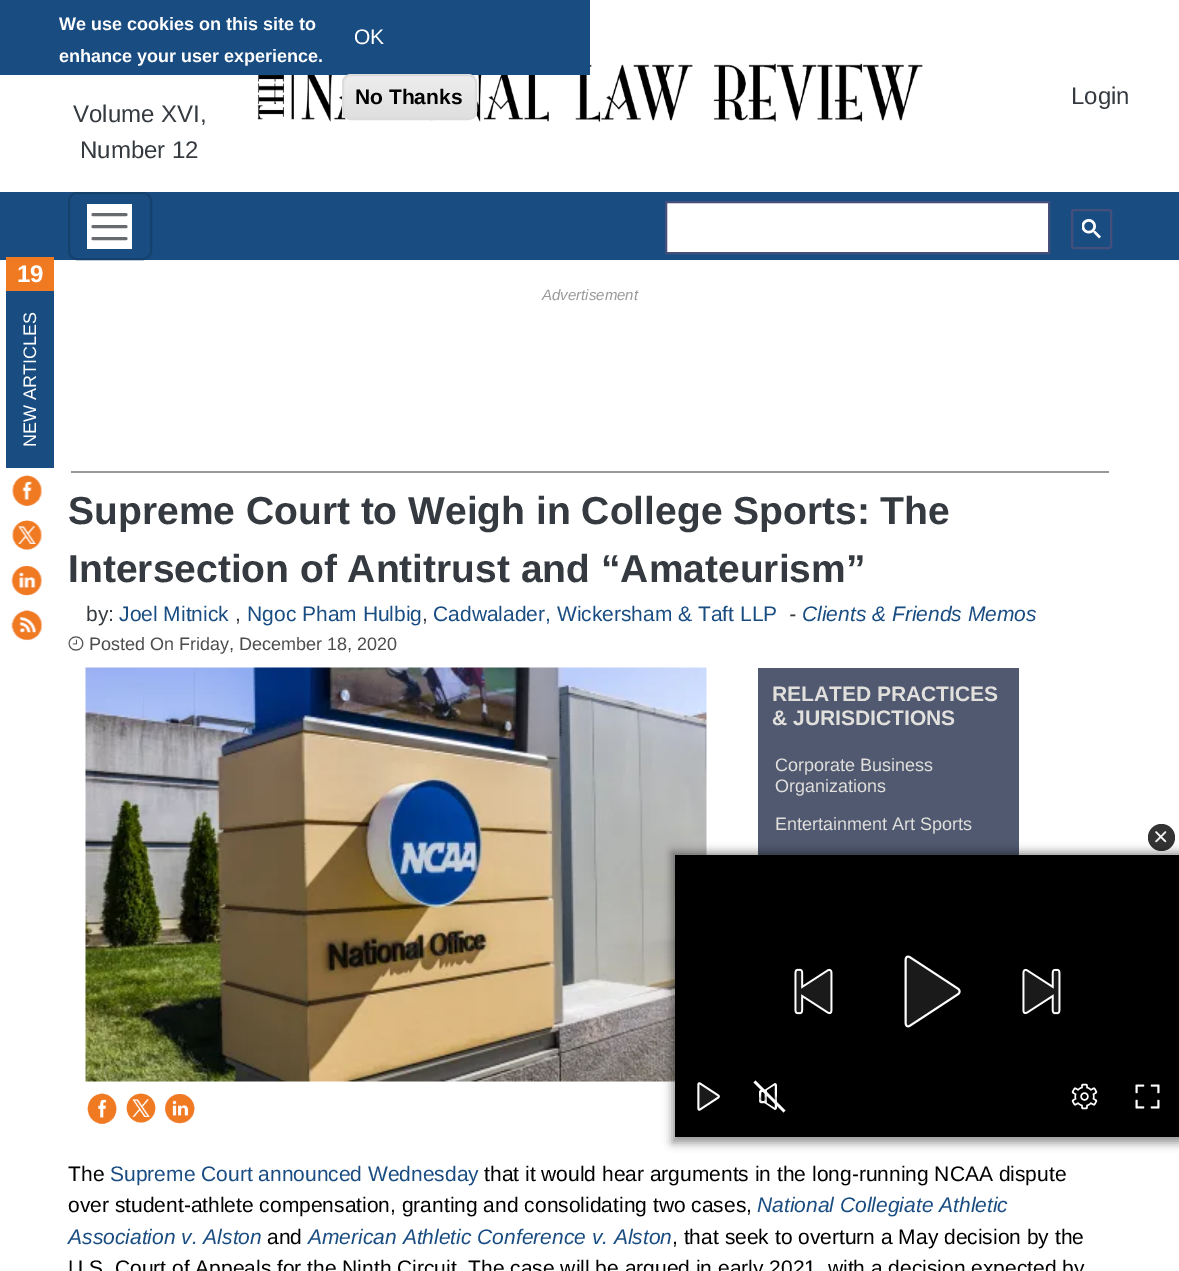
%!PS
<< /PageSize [1179 1271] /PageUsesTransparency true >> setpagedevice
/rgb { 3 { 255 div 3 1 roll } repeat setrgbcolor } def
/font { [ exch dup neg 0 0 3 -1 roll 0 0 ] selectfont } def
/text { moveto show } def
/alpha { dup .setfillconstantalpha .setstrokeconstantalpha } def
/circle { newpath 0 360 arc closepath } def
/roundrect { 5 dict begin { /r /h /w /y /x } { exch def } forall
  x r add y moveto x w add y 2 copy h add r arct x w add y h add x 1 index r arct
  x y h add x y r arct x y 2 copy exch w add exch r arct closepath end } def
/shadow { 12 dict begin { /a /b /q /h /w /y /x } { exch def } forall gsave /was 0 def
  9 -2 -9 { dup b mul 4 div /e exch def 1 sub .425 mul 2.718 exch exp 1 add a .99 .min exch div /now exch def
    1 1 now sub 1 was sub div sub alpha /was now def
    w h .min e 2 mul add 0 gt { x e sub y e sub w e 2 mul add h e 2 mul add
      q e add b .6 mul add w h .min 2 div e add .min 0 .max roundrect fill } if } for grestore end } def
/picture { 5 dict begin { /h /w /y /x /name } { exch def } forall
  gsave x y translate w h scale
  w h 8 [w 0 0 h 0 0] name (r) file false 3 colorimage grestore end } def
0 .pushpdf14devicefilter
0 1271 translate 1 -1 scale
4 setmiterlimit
255 255 255 rgb
0 0 1179 1271 rectfill
(img_01.rgb) 257 63 666 59 picture
25 76 129 rgb
0 0 590 75 rectfill
gsave
342 74 135 46 9 roundrect clip newpath
gsave 342 75 moveto 135 0 rlineto 0 44 rlineto -135 0 rlineto closepath clip newpath
<< /ShadingType 2 /ColorSpace /DeviceRGB /Coords [410 75 410 119] /Extend [true true] /Function << /FunctionType 3 /Domain [0 1] /Functions [<< /FunctionType 2 /Domain [0 1] /C0 [0.929 0.929 0.929] /C1 [0.929 0.929 0.929] /N 1 >> << /FunctionType 2 /Domain [0 1] /C0 [0.929 0.929 0.929] /C1 [0.875 0.875 0.875] /N 1 >>] /Bounds [0.05] /Encode [0 1 0 1] >> >> shfill grestore
grestore
220 220 220 rgb
2 setlinewidth
343 75 133 44 8 roundrect stroke
25 76 129 rgb
0 192 1179 68 rectfill
21 65 110 rgb
69 193 82 66 8 roundrect stroke
255 255 255 rgb
87 204 45 45 rectfill
103 107 112 rgb
3 setlinewidth
1 setlinecap
93 214.5 moveto 33 0 rlineto 93 226.5 moveto 33 0 rlineto 93 238.5 moveto 33 0 rlineto stroke
255 255 255 rgb
666 202 moveto 383 0 rlineto 0 51 rlineto -383 0 rlineto closepath gsave fill grestore
68 79 124 rgb
2 setlinewidth
0 setlinecap
stroke
1072 210 39 38 2 roundrect stroke
(img_02.rgb) 1082 219 19 20 picture
240 122 34 rgb
6 257 48 34 rectfill
25 76 129 rgb
6 291 48 177 rectfill
(img_03.rgb) 12 475 30 31 picture
(img_04.rgb) 12 520 30 30 picture
(img_05.rgb) 11 566 31 30 picture
(img_06.rgb) 11 610 32 31 picture
153 153 153 rgb
71 471 1038 2 rectfill
(img_07.rgb) 68 636 16 15 picture
(img_08.rgb) 85 667 622 415 picture
80 89 111 rgb
758 668 261 187 rectfill
(img_09.rgb) 87 1093 30 31 picture
(img_10.rgb) 126 1093 30 30 picture
(img_11.rgb) 164 1094 31 30 picture
51 51 51 rgb
1161.5 837.5 13.5 circle fill
(img_12.rgb) 1155 831 12 12 picture
0 0 0 rgb
672 852 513 291 0 4.5 0.4 shadow
675 855 504 282 rectfill
(img_13.rgb) 794 968 39 47 picture
(img_14.rgb) 904 955 57 73 picture
(img_15.rgb) 1022 968 39 47 picture
(img_16.rgb) 697 1082 23 29 picture
(img_17.rgb) 759 1083 18 27 picture
750 1097 42 3 0 1.5 0.3 shadow
255 255 255 rgb
755.5 1080.5 moveto 30 30 rlineto -2 2 rlineto -30 -30 rlineto closepath fill
(img_18.rgb) 1071 1083 27 27 picture
(img_19.rgb) 1135 1084 25 25 picture
/LiberationSans-Bold 18 font
(We use cookies on this site to) 59 30 text
(enhance your user experience.) 59 62 text
/LiberationSans-Regular 21 font
(OK) 354 44 text
/LiberationSans-Bold 21 font
0 0 0 rgb
(No Thanks) 355 104 text
/LiberationSans-Regular 24 font
52 58 64 rgb
(Login) 1071 104 text
(Volume XVI,) 73 122 text
(Number 12) 80 158 text
/LiberationSans-Bold 24 font
255 255 255 rgb
(19) 17 282 text
/LiberationSans-Regular 18 font
gsave 36 447 translate -90 rotate 0 0 moveto (NEW ARTICLES) show grestore
/LiberationSans-Italic 15 font
153 153 153 rgb
(Advertisement) 542 300 text
/LiberationSans-Bold 39 font
52 58 64 rgb
(Supreme Court to Weigh in College Sports: The) 68 524 text
(Intersection of Antitrust and “Amateurism”) 68 582 text
/LiberationSans-Regular 21 font
(by:) 86 621 text
25 76 129 rgb
(Joel Mitnick) 119 621 text
(Ngoc Pham Hulbig) 247 621 text
(Cadwalader, Wickersham & Taft LLP) 433 621 text
/LiberationSans-Italic 21 font
52 58 64 rgb
(-) 789 621 text
25 76 129 rgb
(Clients & Friends Memos) 802 621 text
/LiberationSans-Regular 21 font
52 58 64 rgb
(,) 235 621 text
(,) 422 621 text
/LiberationSans-Regular 18 font
76 76 76 rgb
(Posted On Friday, December 18, 2020) 89 650 text
/LiberationSans-Bold 21 font
225 224 220 rgb
(RELATED PRACTICES) 772 701 text
(& JURISDICTIONS) 772 725 text
/LiberationSans-Regular 18 font
(Corporate Business) 775 771 text
(Organizations) 775 792 text
(Entertainment Art Sports) 775 830 text
/LiberationSans-Regular 21 font
0 0 0 rgb
(The) 68 1181 text
25 76 129 rgb
(Supreme Court announced Wednesday) 110 1181 text
0 0 0 rgb
(that it would hear arguments in the long-running NCAA dispute) 484 1181 text
(over student-athlete compensation, granting and consolidating two cases,) 68 1212 text
/LiberationSans-Italic 21 font
25 76 129 rgb
(National Collegiate Athletic) 757 1212 text
(Association v. Alston) 68 1244 text
/LiberationSans-Regular 21 font
0 0 0 rgb
(and) 267 1244 text
/LiberationSans-Italic 21 font
25 76 129 rgb
(American Athletic Conference v. Alston) 308 1244 text
/LiberationSans-Regular 21 font
0 0 0 rgb
(, that seek to overturn a May decision by the) 672 1244 text
(U.S. Court of Appeals for the Ninth Circuit. The case will be argued in early 2021, with a decision expected by) 68 1275 text
.poppdf14devicefilter showpage
